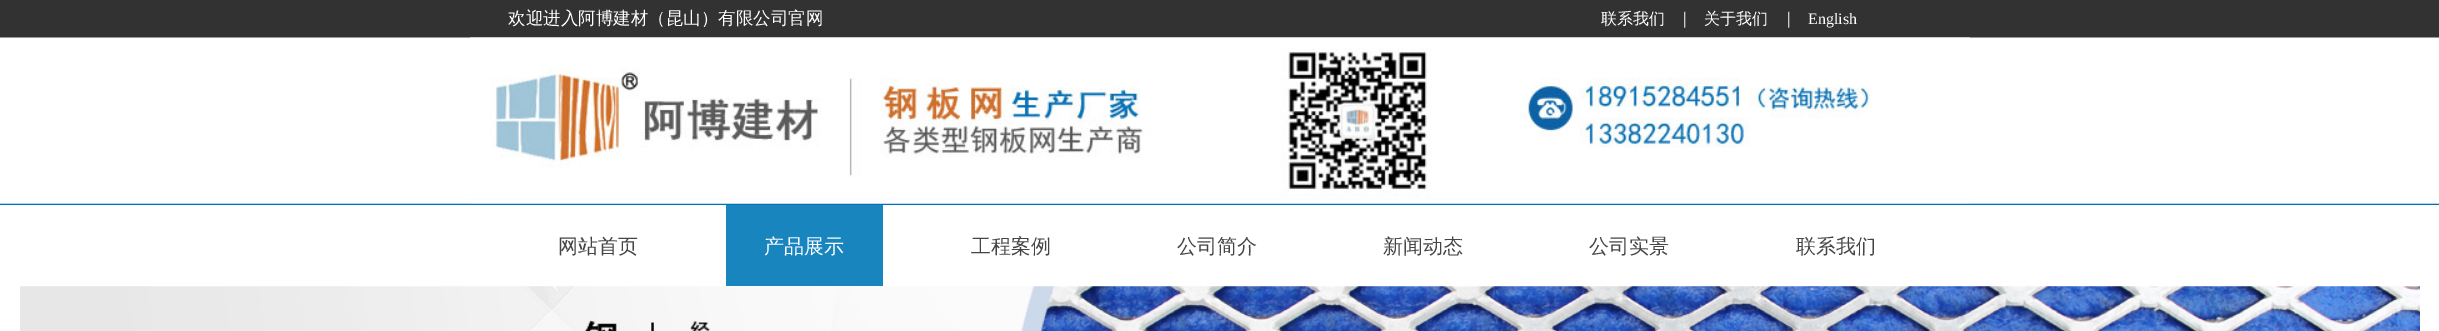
%!PS
<< /PageSize [2439 331] >> setpagedevice
/rgb { 3 { 255 div 3 1 roll } repeat setrgbcolor } def
/font { [ exch dup neg 0 0 3 -1 roll 0 0 ] selectfont } def
/text { moveto show } def
/picture { 5 dict begin { /h /w /y /x /name } { exch def } forall
  gsave x y translate w h scale
  w h 8 [w 0 0 h 0 0] name (r) file false 3 colorimage grestore end } def
0 331 translate 1 -1 scale
4 setmiterlimit
255 255 255 rgb
0 0 2439 331 rectfill
50 50 50 rgb
0 0 2439 38 rectfill
(img_01.rgb) 0 37 2439 168 picture
(img_02.rgb) 470 37 1500 167 picture
24 133 191 rgb
726 205 157 81 rectfill
(img_03.rgb) 20 286 2400 45 picture
/WenQuanYiZenHei-Medium 17.5 font
255 255 255 rgb
(欢迎进入阿博建材（昆山）有限公司官网) 508 24 text
/WenQuanYiZenHei-Medium 16 font
(联系我们) 1601 24 text
/LiberationSerif-Regular 17.5 font
(|) 1683 24 text
/WenQuanYiZenHei-Medium 16 font
(关于我们) 1704 24 text
/LiberationSerif-Regular 17.5 font
(|) 1787 24 text
/LiberationSerif-Regular 16 font
(English) 1808 24 text
/WenQuanYiZenHei-Medium 20 font
69 69 69 rgb
(网站首页) 558 253 text
255 255 255 rgb
(产品展示) 764 253 text
69 69 69 rgb
(工程案例) 971 253 text
(公司简介) 1177 253 text
(新闻动态) 1383 253 text
(公司实景) 1589 253 text
(联系我们) 1796 253 text
showpage
